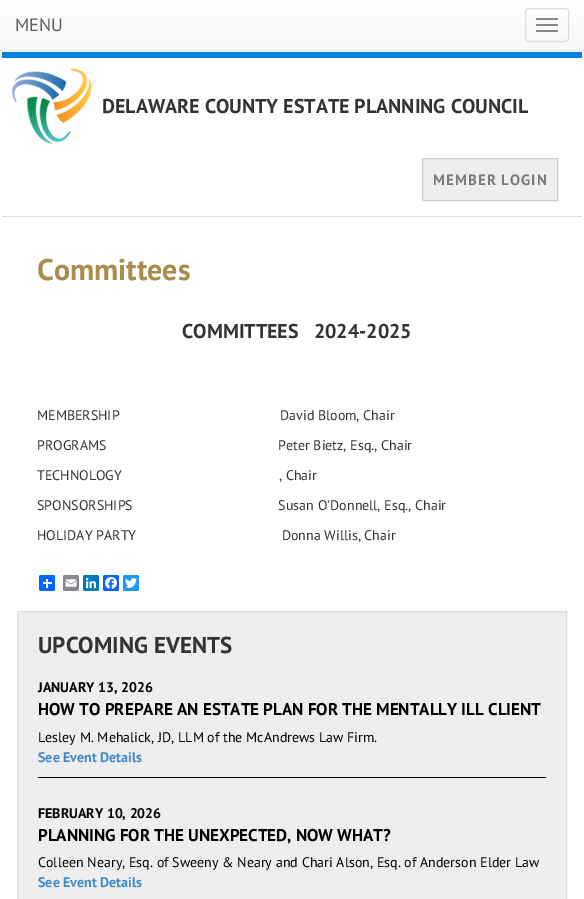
%!PS
<< /PageSize [584 899] /PageUsesTransparency true >> setpagedevice
/rgb { 3 { 255 div 3 1 roll } repeat setrgbcolor } def
/font { [ exch dup neg 0 0 3 -1 roll 0 0 ] selectfont } def
/text { moveto show } def
/alpha { dup .setfillconstantalpha .setstrokeconstantalpha } def
/roundrect { 5 dict begin { /r /h /w /y /x } { exch def } forall
  x r add y moveto x w add y 2 copy h add r arct x w add y h add x 1 index r arct
  x y h add x y r arct x y 2 copy exch w add exch r arct closepath end } def
/shadow { 12 dict begin { /a /b /q /h /w /y /x } { exch def } forall gsave /was 0 def
  9 -2 -9 { dup b mul 4 div /e exch def 1 sub .425 mul 2.718 exch exp 1 add a .99 .min exch div /now exch def
    1 1 now sub 1 was sub div sub alpha /was now def
    w h .min e 2 mul add 0 gt { x e sub y e sub w e 2 mul add h e 2 mul add
      q e add b .6 mul add w h .min 2 div e add .min 0 .max roundrect fill } if } for grestore end } def
/picture { 5 dict begin { /h /w /y /x /name } { exch def } forall
  gsave x y translate w h scale
  w h 8 [w 0 0 h 0 0] name (r) file false 3 colorimage grestore end } def
0 .pushpdf14devicefilter
0 899 translate 1 -1 scale
4 setmiterlimit
255 255 255 rgb
0 0 584 899 rectfill
1 133 225 rgb
2 52 580 6 rectfill
0 0 0 rgb
0 1 584 51 0 2.5 0.07 shadow
gsave 0 0 moveto 584 0 rlineto 0 50 rlineto -584 0 rlineto closepath clip newpath
<< /ShadingType 2 /ColorSpace /DeviceRGB /Coords [292 0 292 50] /Extend [true true] /Function << /FunctionType 2 /Domain [0 1] /C0 [1 1 1] /C1 [0.973 0.973 0.973] /N 1 >> >> shfill grestore
231 231 231 rgb
0 50 584 1 rectfill
221 221 221 rgb
525.5 8.5 43 33 3.5 roundrect stroke
136 136 136 rgb
536 18 22 2 1 roundrect fill
536 24 22 2 1 roundrect fill
536 30 22 2 1 roundrect fill
221 221 221 rgb
2 216 580 1 rectfill
(img_01.rgb) 12 68 80 76 picture
238 238 238 rgb
422.5 158.5 moveto 135 0 rlineto 0 42 rlineto -135 0 rlineto closepath gsave fill grestore
204 204 204 rgb
stroke
1 102 255 rgb
39 575 16 16 2 roundrect fill
255 255 255 rgb
46 579 2 9 rectfill
43 582 9 2 rectfill
136 137 144 rgb
63 575 16 16 2 roundrect fill
(img_02.rgb) 65 579 12 8 picture
0 123 181 rgb
83 575 16 16 2 roundrect fill
(img_03.rgb) 86 578 11 11 picture
8 102 255 rgb
103 575 16 16 2 roundrect fill
(img_04.rgb) 105 577 12 12 picture
29 155 240 rgb
123 575 16 16 2 roundrect fill
(img_05.rgb) 125 578 12 10 picture
238 238 238 rgb
17.5 611.5 moveto 549 0 rlineto 0 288 rlineto -549 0 rlineto closepath gsave fill grestore
221 221 221 rgb
stroke
0 0 0 rgb
38 777 508 1 rectfill
/PTSans-Regular 18 font
94 94 94 rgb
(MENU) 15 31 text
/PTSans-Bold 20 font
51 51 51 rgb
(DELAWARE COUNTY ESTATE PLANNING COUNCIL) 102 113 text
/PTSans-Bold 15 font
124 121 123 rgb
433 185 moveto 1 0 (MEMBER LOGIN) ashow
/PTSans-Bold 30 font
168 141 79 rgb
(Committees) 37 280 text
/PTSans-Bold 20 font
51 51 51 rgb
(COMMITTEES   2024-2025) 182 338 text
/PTSans-Regular 14 font
(MEMBERSHIP                                           David Bloom, Chair) 37 420 text
(PROGRAMS                                              Peter Bietz, Esq., Chair) 37 450 text
(TECHNOLOGY                                          , Chair) 37 480 text
(SPONSORSHIPS                                       Susan O'Donnell, Esq., Chair) 37 510 text
(HOLIDAY PARTY                                       Donna Willis, Chair) 37 540 text
/PTSans-Bold 23 font
(UPCOMING EVENTS) 38 653 text
/PTSans-Bold 14 font
0 0 0 rgb
(JANUARY 13, 2026) 38 692 text
/PTSans-Bold 17 font
(HOW TO PREPARE AN ESTATE PLAN FOR THE MENTALLY ILL CLIENT) 38 715 text
/PTSans-Regular 14 font
(Lesley M. Mehalick, JD, LLM of the McAndrews Law Firm.) 38 742 text
/PTSans-Bold 14 font
66 139 202 rgb
(See Event Details) 38 762 text
0 0 0 rgb
(FEBRUARY 10, 2026) 38 818 text
/PTSans-Bold 17 font
(PLANNING FOR THE UNEXPECTED, NOW WHAT?) 38 841 text
/PTSans-Regular 14 font
(Colleen Neary, Esq. of Sweeny & Neary and Chari Alson, Esq. of Anderson Elder Law) 38 867 text
/PTSans-Bold 14 font
66 139 202 rgb
(See Event Details) 38 887 text
.poppdf14devicefilter showpage
